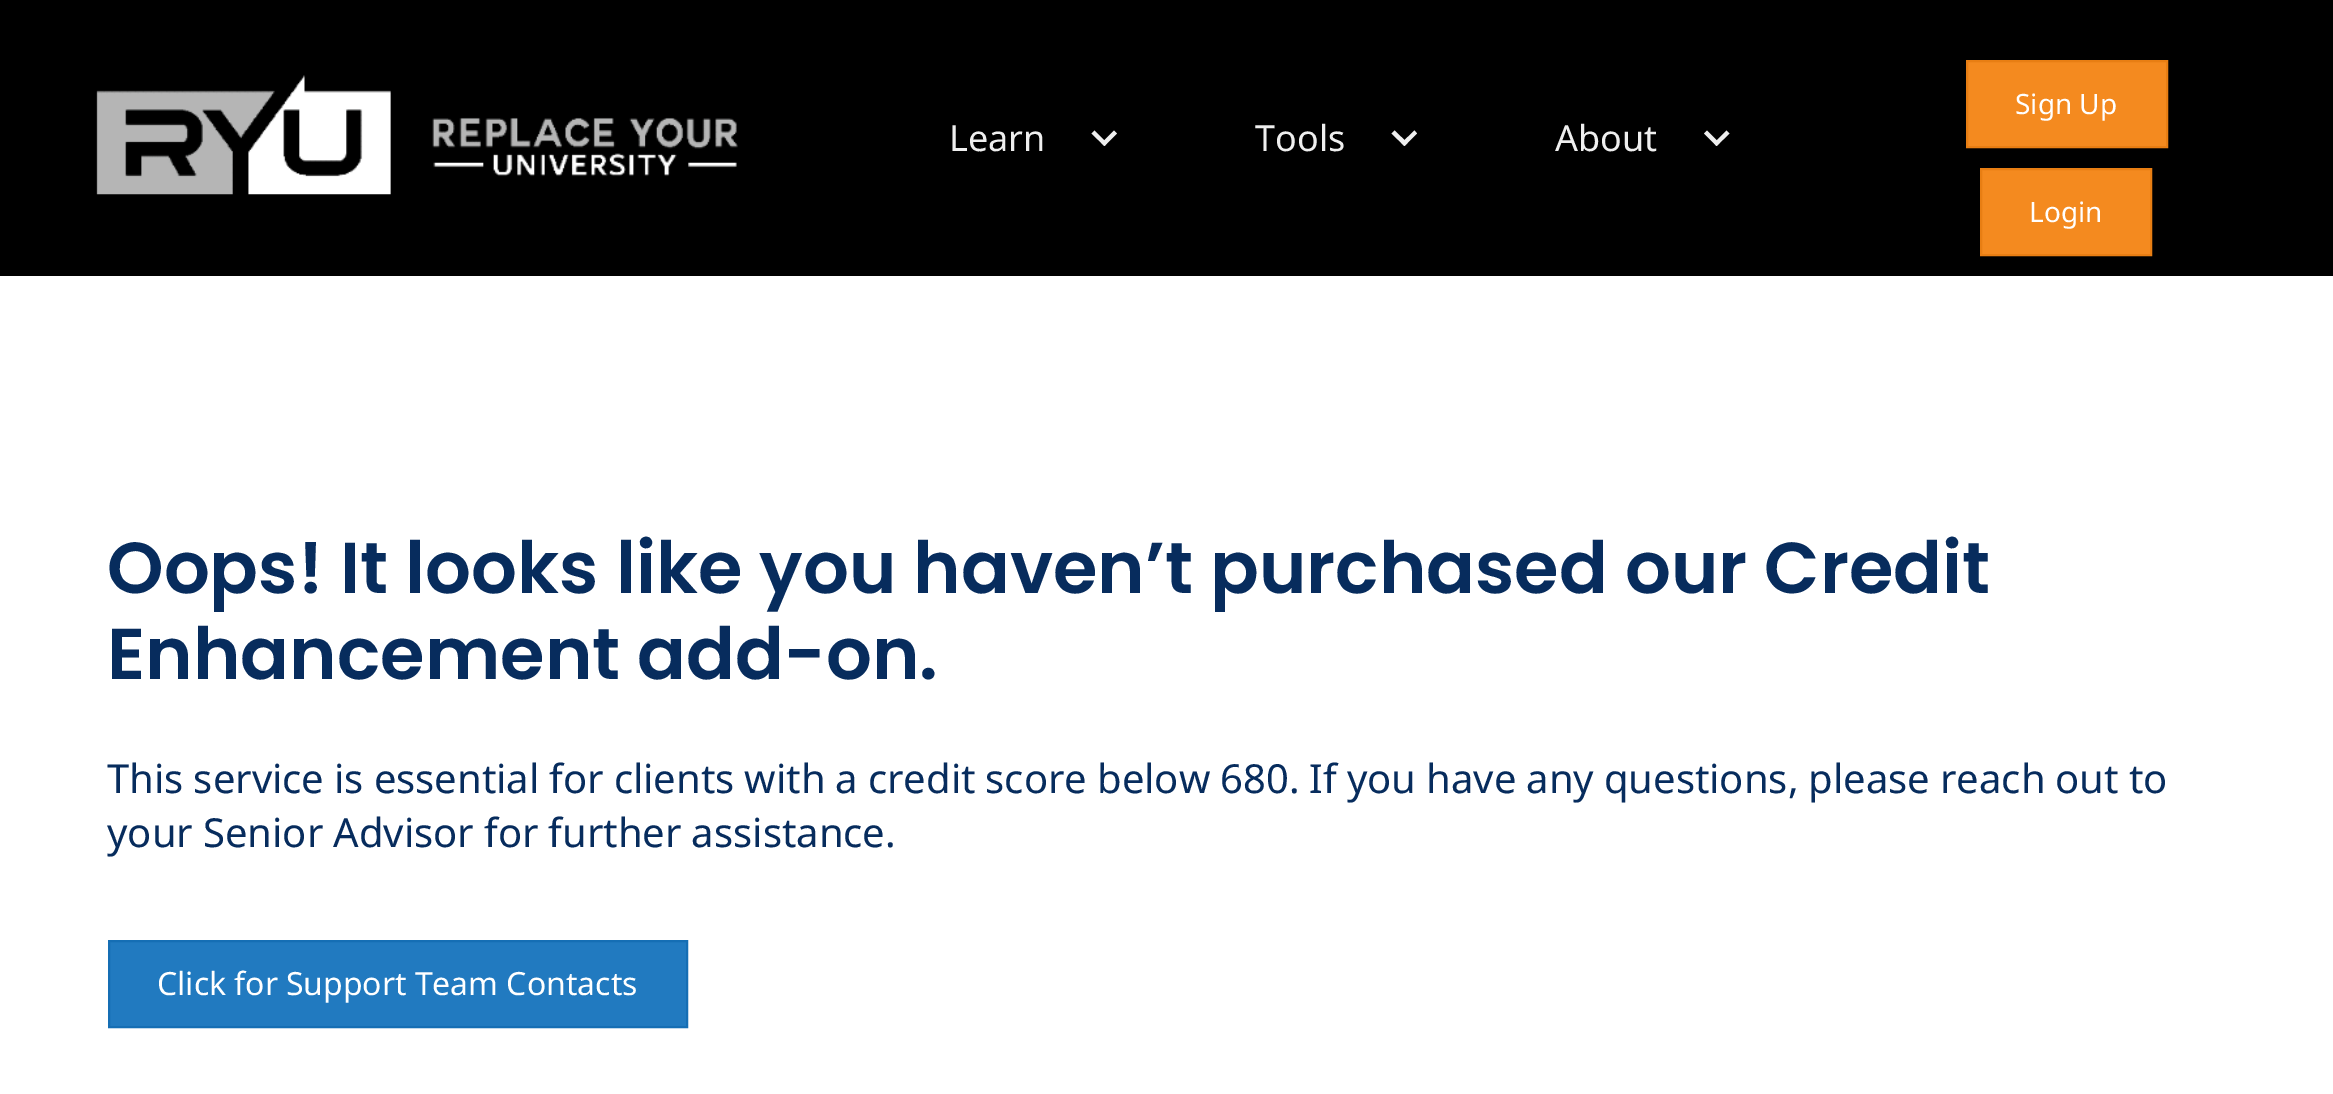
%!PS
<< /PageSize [2333 1094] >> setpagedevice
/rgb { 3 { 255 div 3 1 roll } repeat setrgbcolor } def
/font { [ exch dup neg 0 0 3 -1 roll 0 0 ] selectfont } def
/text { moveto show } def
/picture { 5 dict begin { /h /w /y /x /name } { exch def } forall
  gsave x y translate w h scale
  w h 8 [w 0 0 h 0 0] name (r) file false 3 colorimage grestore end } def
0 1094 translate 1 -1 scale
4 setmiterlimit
255 255 255 rgb
0 0 2333 1094 rectfill
0 0 0 rgb
0 0 2333 276 rectfill
(img_01.rgb) 96 75 642 120 picture
239 239 239 rgb
1114 130.5 moveto 3 3 rlineto -12.5 12.5 rlineto -3 -3 rlineto closepath fill
1094.5 130.5 moveto 12.5 12.5 rlineto -2.5 3 rlineto -13 -12.5 rlineto closepath fill
1414.5 130.5 moveto 2.5 3 rlineto -12.5 12.5 rlineto -3 -3 rlineto closepath fill
1394.5 130.5 moveto 13 12.5 rlineto -3 3 rlineto -13 -12.5 rlineto closepath fill
1726.5 130.5 moveto 3 3 rlineto -13 12.5 rlineto -2.5 -3 rlineto closepath fill
1707 130.5 moveto 12.5 12.5 rlineto -3 3 rlineto -12.5 -12.5 rlineto closepath fill
244 138 31 rgb
1967 61 moveto 200 0 rlineto 0 86 rlineto -200 0 rlineto closepath gsave fill grestore
232 126 19 rgb
2 setlinewidth
stroke
244 138 31 rgb
1981 169 moveto 170 0 rlineto 0 86 rlineto -170 0 rlineto closepath gsave fill grestore
232 126 19 rgb
stroke
33 122 192 rgb
109 941 moveto 578 0 rlineto 0 86 rlineto -578 0 rlineto closepath gsave fill grestore
21 110 180 rgb
stroke
/NotoSansAdlam-Regular 36 font
239 239 239 rgb
(Learn) 949 151 text
(Tools) 1255 151 text
(About) 1555 151 text
/NotoSansAdlam-Regular 28 font
255 255 255 rgb
(Sign Up) 2015 114 text
(Login) 2029 222 text
/Poppins-SemiBold 72 font
7 44 93 rgb
(Oops! It looks like you haven’t purchased our Credit) 107 593 text
(Enhancement add-on.) 107 679 text
/NotoSansAdlam-Regular 40 font
(This service is essential for clients with a credit score below 680. If you have any questions, please reach out to) 107 793 text
(your Senior Advisor for further assistance.) 107 847 text
/NotoSansAdlam-Regular 32 font
255 255 255 rgb
(Click for Support Team Contacts) 157 995 text
showpage
